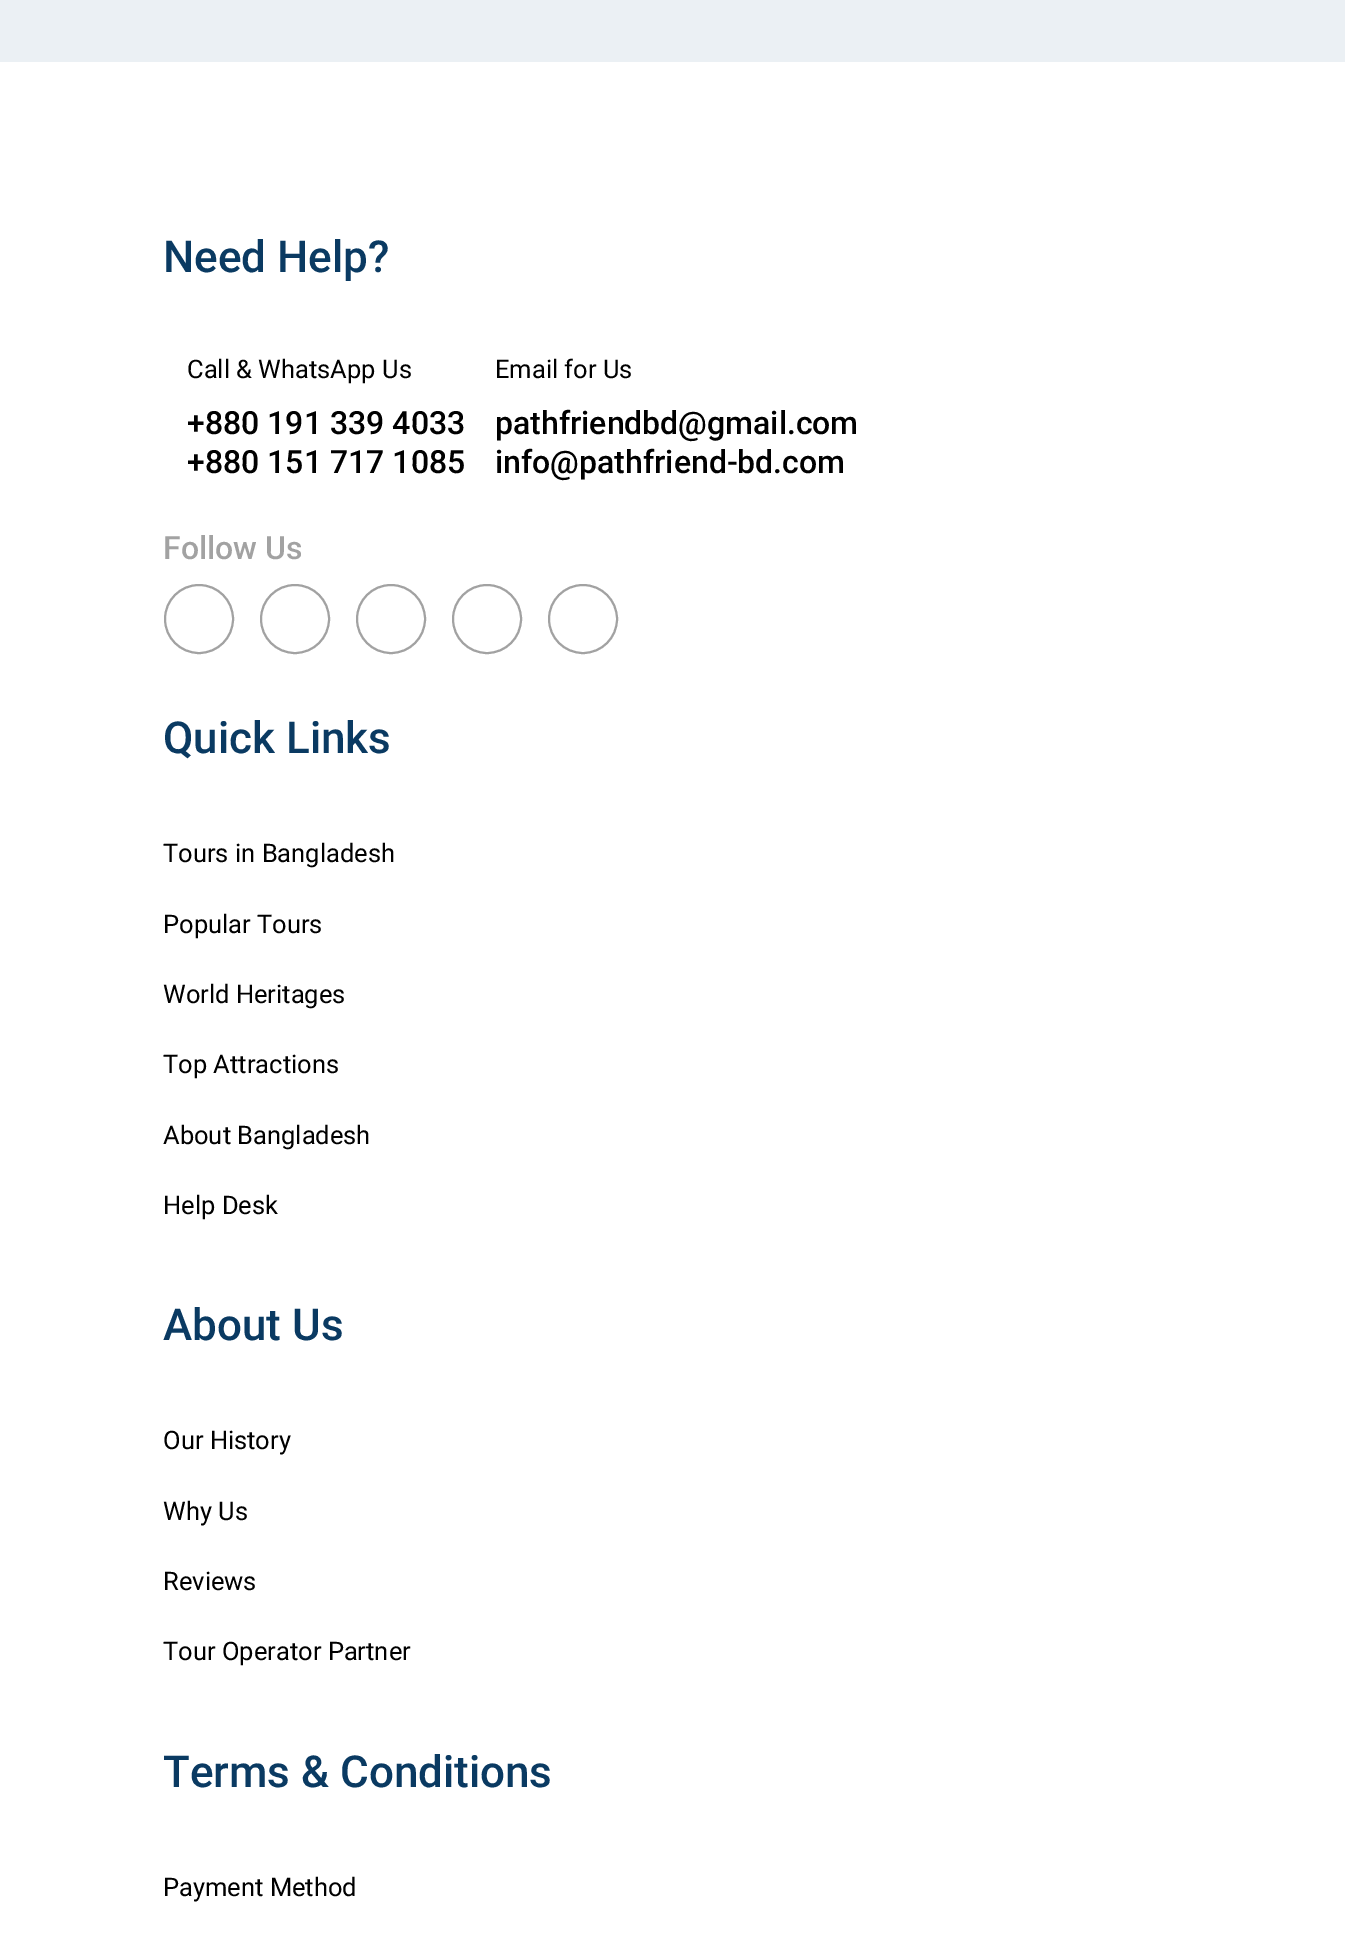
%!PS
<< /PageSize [1345 1945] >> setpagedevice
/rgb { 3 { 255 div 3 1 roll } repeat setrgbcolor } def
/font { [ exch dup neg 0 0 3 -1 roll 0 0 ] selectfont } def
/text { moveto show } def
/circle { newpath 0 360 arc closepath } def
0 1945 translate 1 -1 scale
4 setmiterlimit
235 240 244 rgb
0 0 1345 1945 rectfill
255 255 255 rgb
0 62 1345 1883 rectfill
162 162 162 rgb
2 setlinewidth
199 619 34 circle stroke
295 619 34 circle stroke
391 619 34 circle stroke
487 619 34 circle stroke
583 619 34 circle stroke
/Roboto-Medium 44 font
10 58 98 rgb
(Need Help?) 163 272 text
/Roboto-Regular 25.5 font
0 0 0 rgb
(Call & WhatsApp Us) 187 378 text
/Roboto-Medium 32 font
(+880 191 339 4033) 187 434 text
(+880 151 717 1085) 187 473 text
/Roboto-Regular 25.5 font
(Email for Us) 495 378 text
/Roboto-Medium 32 font
(pathfriendbd@gmail.com) 495 434 text
(info@pathfriend-bd.com) 495 473 text
162 162 162 rgb
(Follow Us) 163 559 text
/Roboto-Medium 44 font
10 58 98 rgb
(Quick Links) 163 753 text
/Roboto-Regular 25.5 font
0 0 0 rgb
(Tours in Bangladesh) 163 862 text
(Popular Tours) 163 933 text
(World Heritages) 163 1003 text
(Top Attractions) 163 1073 text
(About Bangladesh) 163 1144 text
(Help Desk) 163 1214 text
/Roboto-Medium 44 font
10 58 98 rgb
(About Us) 163 1340 text
/Roboto-Regular 25.5 font
0 0 0 rgb
(Our History) 163 1449 text
(Why Us) 163 1520 text
(Reviews) 163 1590 text
(Tour Operator Partner) 163 1660 text
/Roboto-Medium 44 font
10 58 98 rgb
(Terms & Conditions) 163 1787 text
/Roboto-Regular 25.5 font
0 0 0 rgb
(Payment Method) 163 1896 text
showpage
